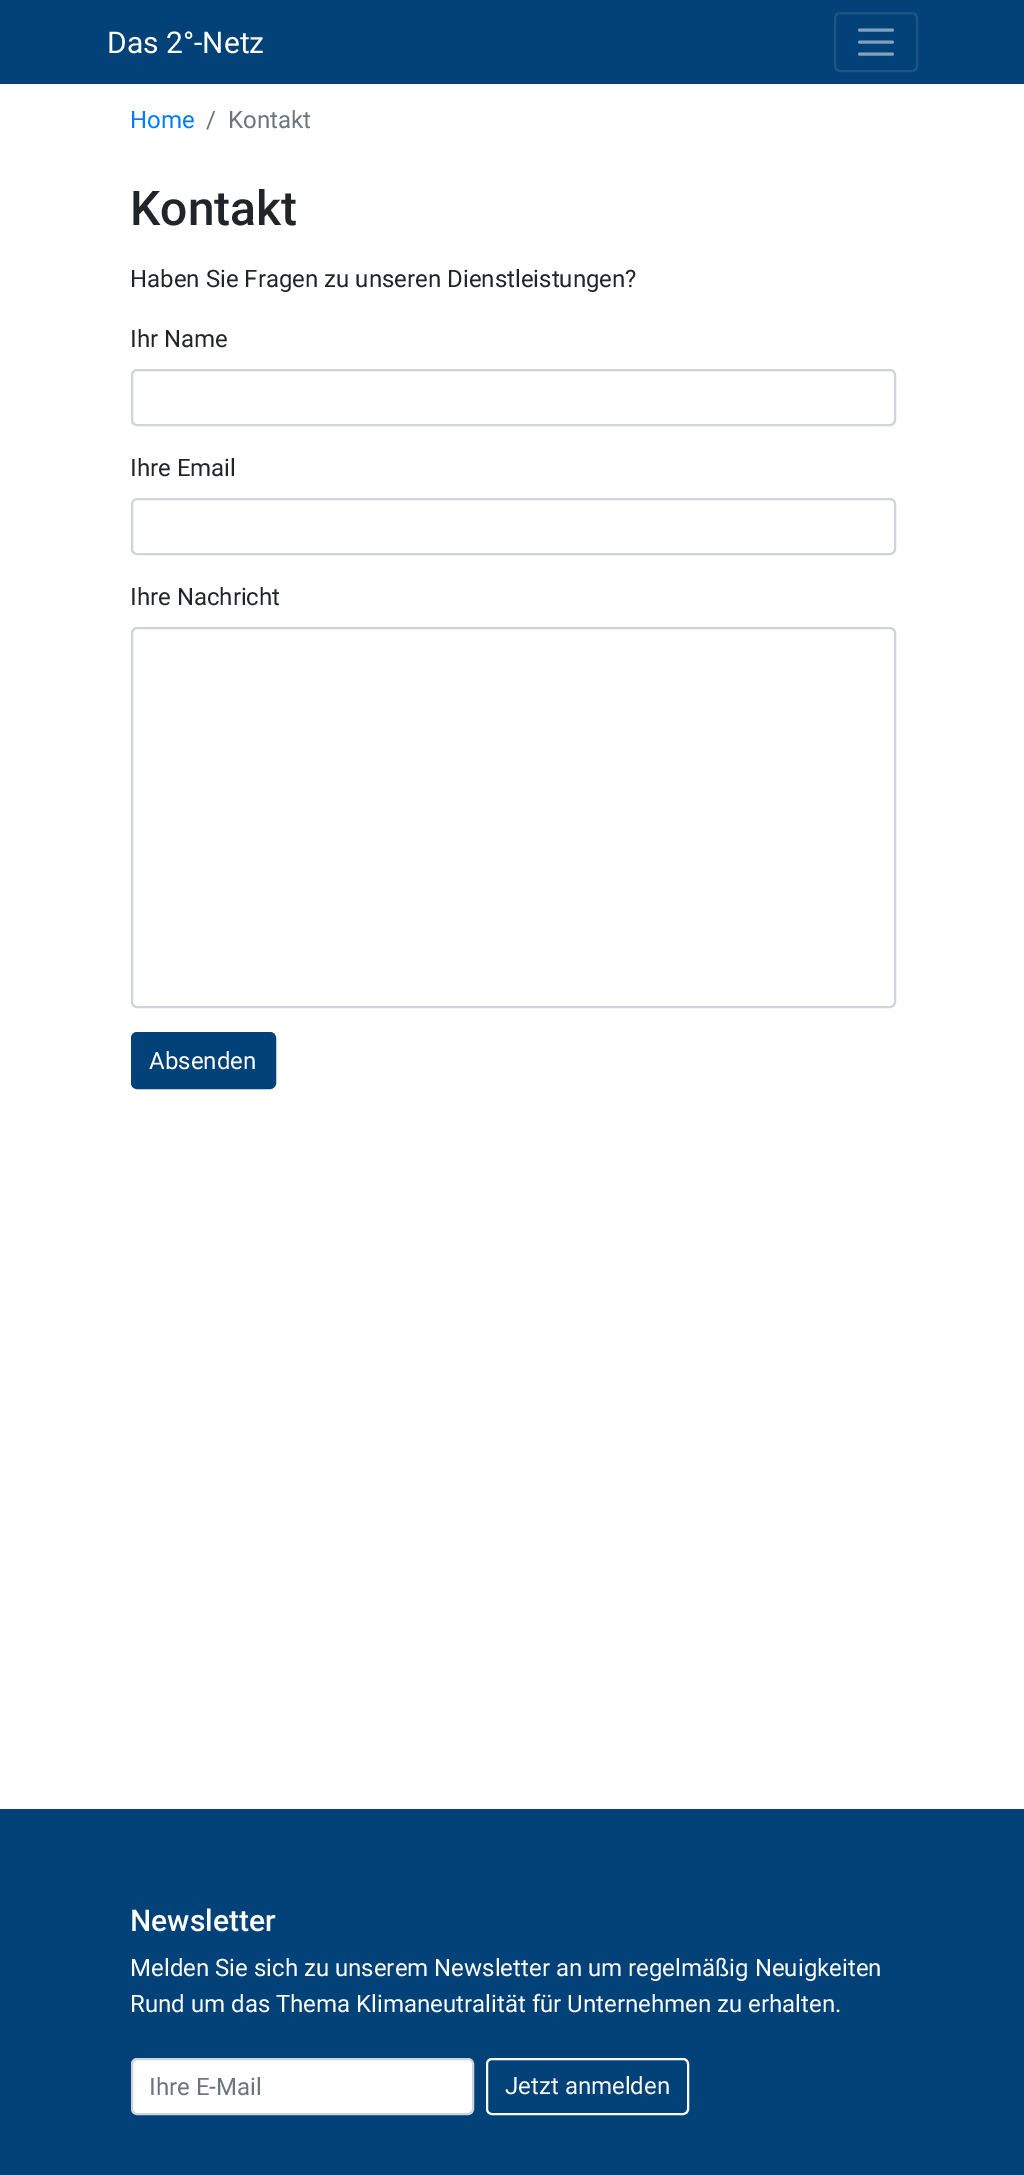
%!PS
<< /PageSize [1024 2175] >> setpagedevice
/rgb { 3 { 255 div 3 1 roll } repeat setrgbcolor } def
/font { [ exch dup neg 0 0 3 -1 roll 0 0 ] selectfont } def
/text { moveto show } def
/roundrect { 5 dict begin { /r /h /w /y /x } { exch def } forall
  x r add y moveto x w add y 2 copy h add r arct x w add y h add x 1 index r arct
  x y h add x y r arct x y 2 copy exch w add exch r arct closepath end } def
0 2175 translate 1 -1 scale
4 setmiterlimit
3 66 120 rgb
0 0 1024 2175 rectfill
28 85 134 rgb
2 setlinewidth
835 13 82 58 5 roundrect stroke
129 161 188 rgb
3 setlinewidth
1 setlinecap
859.5 30 moveto 33 0 rlineto 859.5 42 moveto 33 0 rlineto 859.5 54 moveto 33 0 rlineto stroke
255 255 255 rgb
0 84 1024 1725 rectfill
206 212 218 rgb
2 setlinewidth
0 setlinecap
132 370 763 55 5 roundrect stroke
132 499 763 55 5 roundrect stroke
132 628 763 379 5 roundrect stroke
3 66 120 rgb
132 1033 143 55 5 roundrect gsave fill grestore
stroke
255 255 255 rgb
132 2059 341 55 5 roundrect gsave fill grestore
206 212 218 rgb
stroke
248 249 250 rgb
487 2059 201 55 5 roundrect stroke
/Roboto-Regular 30 font
255 255 255 rgb
(Das 2°-Netz) 107 53 text
/Roboto-Regular 24 font
0 123 255 rgb
(Home) 130 128 text
108 117 125 rgb
(/) 206 128 text
(Kontakt) 228 128 text
/Roboto-Medium 48 font
33 37 41 rgb
(Kontakt) 130 225 text
/Roboto-Regular 24 font
(Haben Sie Fragen zu unseren Dienstleistungen?) 130 287 text
(Ihr Name) 130 347 text
(Ihre Email) 130 476 text
(Ihre Nachricht) 130 605 text
255 255 255 rgb
(Absenden) 149 1069 text
/Roboto-Medium 30 font
(Newsletter) 130 1931 text
/Roboto-Regular 24 font
(Melden Sie sich zu unserem Newsletter an um regelmäßig Neuigkeiten) 130 1976 text
(Rund um das Thema Klimaneutralität für Unternehmen zu erhalten.) 130 2012 text
108 117 125 rgb
(Ihre E-Mail) 149 2095 text
248 249 250 rgb
(Jetzt anmelden) 505 2094 text
showpage
